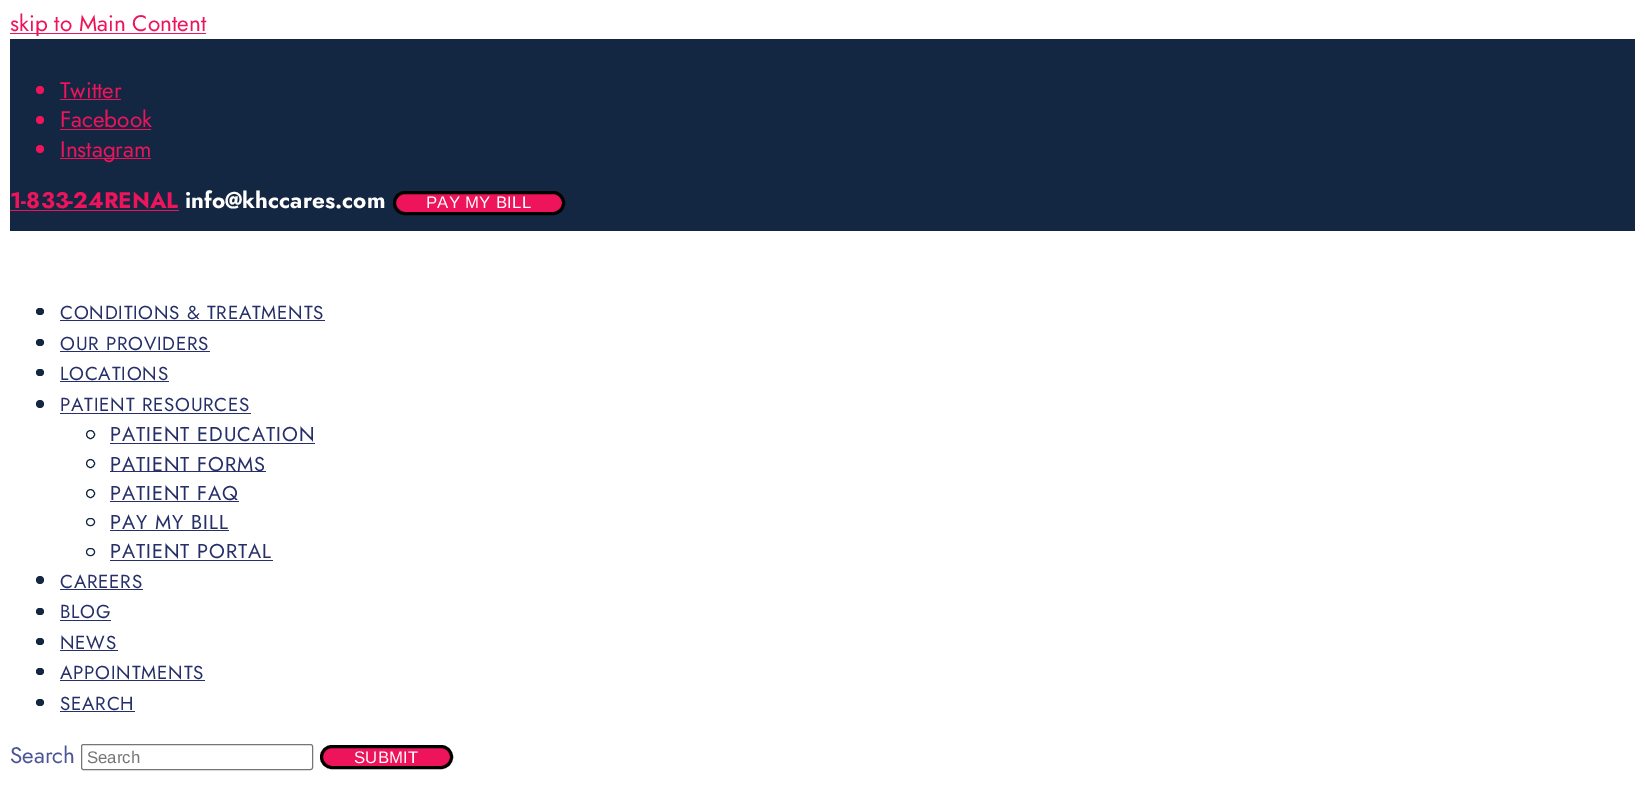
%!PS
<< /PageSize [1645 791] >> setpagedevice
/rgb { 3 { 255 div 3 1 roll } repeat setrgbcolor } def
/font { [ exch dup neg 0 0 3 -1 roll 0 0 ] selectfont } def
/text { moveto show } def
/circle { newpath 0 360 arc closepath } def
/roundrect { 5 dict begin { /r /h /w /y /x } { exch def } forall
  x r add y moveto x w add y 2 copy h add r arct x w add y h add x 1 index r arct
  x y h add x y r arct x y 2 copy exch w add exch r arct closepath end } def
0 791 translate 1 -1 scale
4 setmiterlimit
255 255 255 rgb
0 0 1645 791 rectfill
237 20 91 rgb
10 33 196 1 rectfill
20 39 66 rgb
10 39 1625 192 rectfill
237 20 91 rgb
40 90 4 circle fill
60 99 61 1 rectfill
40 120 4 circle fill
60 129 91 1 rectfill
40 149 4 circle fill
60 158 91 1 rectfill
10 210 169 1 rectfill
394.5 192.5 169 21 10.5 roundrect gsave fill grestore
0 0 0 rgb
3 setlinewidth
stroke
20 39 66 rgb
36 308 8 7 3.5 roundrect fill
38 47 105 rgb
60 320 265 1 rectfill
20 39 66 rgb
36 339 8 7 3.5 roundrect fill
38 47 105 rgb
60 351 150 1 rectfill
20 39 66 rgb
36 369 8 7 3.5 roundrect fill
38 47 105 rgb
60 381 109 1 rectfill
20 39 66 rgb
40 404 4 circle fill
38 47 105 rgb
60 413 191 1 rectfill
20 39 66 rgb
1 setlinewidth
90.5 434.5 4 circle stroke
38 47 105 rgb
110 443 205 1 rectfill
20 39 66 rgb
90.5 463.5 4 circle stroke
38 47 105 rgb
110 471 156 1 rectfill
20 39 66 rgb
90.5 493.5 4 circle stroke
38 47 105 rgb
110 501 129 1 rectfill
20 39 66 rgb
86.5 518.5 8 7 3.5 roundrect stroke
38 47 105 rgb
110 530 119 1 rectfill
20 39 66 rgb
86.5 548.5 8 7 3.5 roundrect stroke
38 47 105 rgb
110 560 163 1 rectfill
20 39 66 rgb
40 580 4 circle fill
38 47 105 rgb
60 589 83 1 rectfill
20 39 66 rgb
36 608 8 7 3.5 roundrect fill
38 47 105 rgb
60 620 51 1 rectfill
20 39 66 rgb
36 638 8 7 3.5 roundrect fill
38 47 105 rgb
60 650 58 1 rectfill
20 39 66 rgb
36 668 8 7 3.5 roundrect fill
38 47 105 rgb
60 680 145 1 rectfill
20 39 66 rgb
36 699 8 7 3.5 roundrect fill
38 47 105 rgb
60 711 75 1 rectfill
118 118 118 rgb
81.5 744.5 231 25 2 roundrect stroke
237 20 91 rgb
321.5 746.5 130 21 10.5 roundrect gsave fill grestore
0 0 0 rgb
3 setlinewidth
stroke
/Jost-Regular 22.5 font
237 20 91 rgb
(skip to Main Content) 10 31 text
(Twitter) 60 98 text
(Facebook) 60 127 text
(Instagram) 60 157 text
/Jost-Bold 22.5 font
(1-833-24RENAL) 10 208 text
255 255 255 rgb
(info@khccares.com) 185 208 text
/LiberationSans-Regular 16.75 font
426 208 moveto 0.25 0 (PAY MY BILL) ashow
/Jost-Regular 18.75 font
38 47 105 rgb
60 319 moveto 0.8 0 (CONDITIONS & TREATMENTS) ashow
60 350 moveto 0.8 0 (OUR PROVIDERS) ashow
60 380 moveto 0.8 0 (LOCATIONS) ashow
60 411 moveto 0.8 0 (PATIENT RESOURCES) ashow
/Jost-Regular 20 font
110 441 moveto 0.9 0 (PATIENT EDUCATION) ashow
110 471 moveto 0.9 0 (PATIENT FORMS) ashow
110 500 moveto 0.9 0 (PATIENT FAQ) ashow
110 529 moveto 0.9 0 (PAY MY BILL) ashow
110 558 moveto 0.9 0 (PATIENT PORTAL) ashow
/Jost-Regular 18.75 font
60 588 moveto 0.8 0 (CAREERS) ashow
60 618 moveto 0.8 0 (BLOG) ashow
60 649 moveto 0.8 0 (NEWS) ashow
60 679 moveto 0.8 0 (APPOINTMENTS) ashow
60 710 moveto 0.8 0 (SEARCH) ashow
/Jost-Regular 22.5 font
76 86 150 rgb
(Search) 10 763 text
/LiberationSans-Regular 16.75 font
117 117 117 rgb
(Search) 87 763 text
255 255 255 rgb
354 763 moveto 0.25 0 (SUBMIT) ashow
showpage
